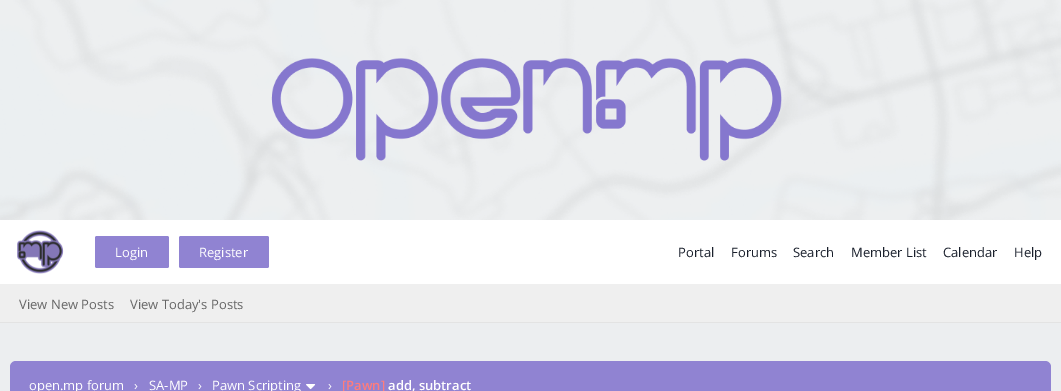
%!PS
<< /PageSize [1061 391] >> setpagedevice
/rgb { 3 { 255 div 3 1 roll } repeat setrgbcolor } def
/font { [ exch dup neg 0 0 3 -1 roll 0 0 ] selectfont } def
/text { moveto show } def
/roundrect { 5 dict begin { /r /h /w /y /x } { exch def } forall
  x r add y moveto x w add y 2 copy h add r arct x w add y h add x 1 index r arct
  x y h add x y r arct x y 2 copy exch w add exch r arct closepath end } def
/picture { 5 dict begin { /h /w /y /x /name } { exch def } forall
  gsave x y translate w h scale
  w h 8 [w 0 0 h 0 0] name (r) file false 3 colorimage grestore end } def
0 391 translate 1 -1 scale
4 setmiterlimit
236 238 240 rgb
0 0 1061 391 rectfill
(img_01.rgb) 0 0 1061 220 picture
(img_02.rgb) 271 58 511 103 picture
255 255 255 rgb
0 220 1061 64 rectfill
(img_03.rgb) 17 230 47 44 picture
144 131 210 rgb
95 236 74 32 2 roundrect fill
179 236 90 32 2 roundrect fill
239 239 239 rgb
0 284 1061 38 rectfill
227 227 227 rgb
0 322 1061 1 rectfill
144 131 210 rgb
10 361 1041 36 6 roundrect fill
(img_04.rgb) 306 384 10 6 picture
/OpenSans-Regular 13 font
255 255 255 rgb
(Login) 115 257 text
(Register) 199 257 text
26 32 44 rgb
(Portal) 678 257 text
(Forums) 731 257 text
(Search) 793 257 text
(Member List) 851 257 text
(Calendar) 943 257 text
(Help) 1014 257 text
102 102 102 rgb
(View New Posts) 19 309 text
(View Today's Posts) 130 309 text
255 255 255 rgb
(open.mp forum) 29 390 text
(›) 134 390 text
(SA-MP) 149 390 text
(›) 198 390 text
(Pawn Scripting) 212 390 text
(›) 328 390 text
/OpenSans-SemiBold 13 font
255 124 124 rgb
([Pawn]) 342 390 text
255 255 255 rgb
(add, subtract) 388 390 text
showpage
